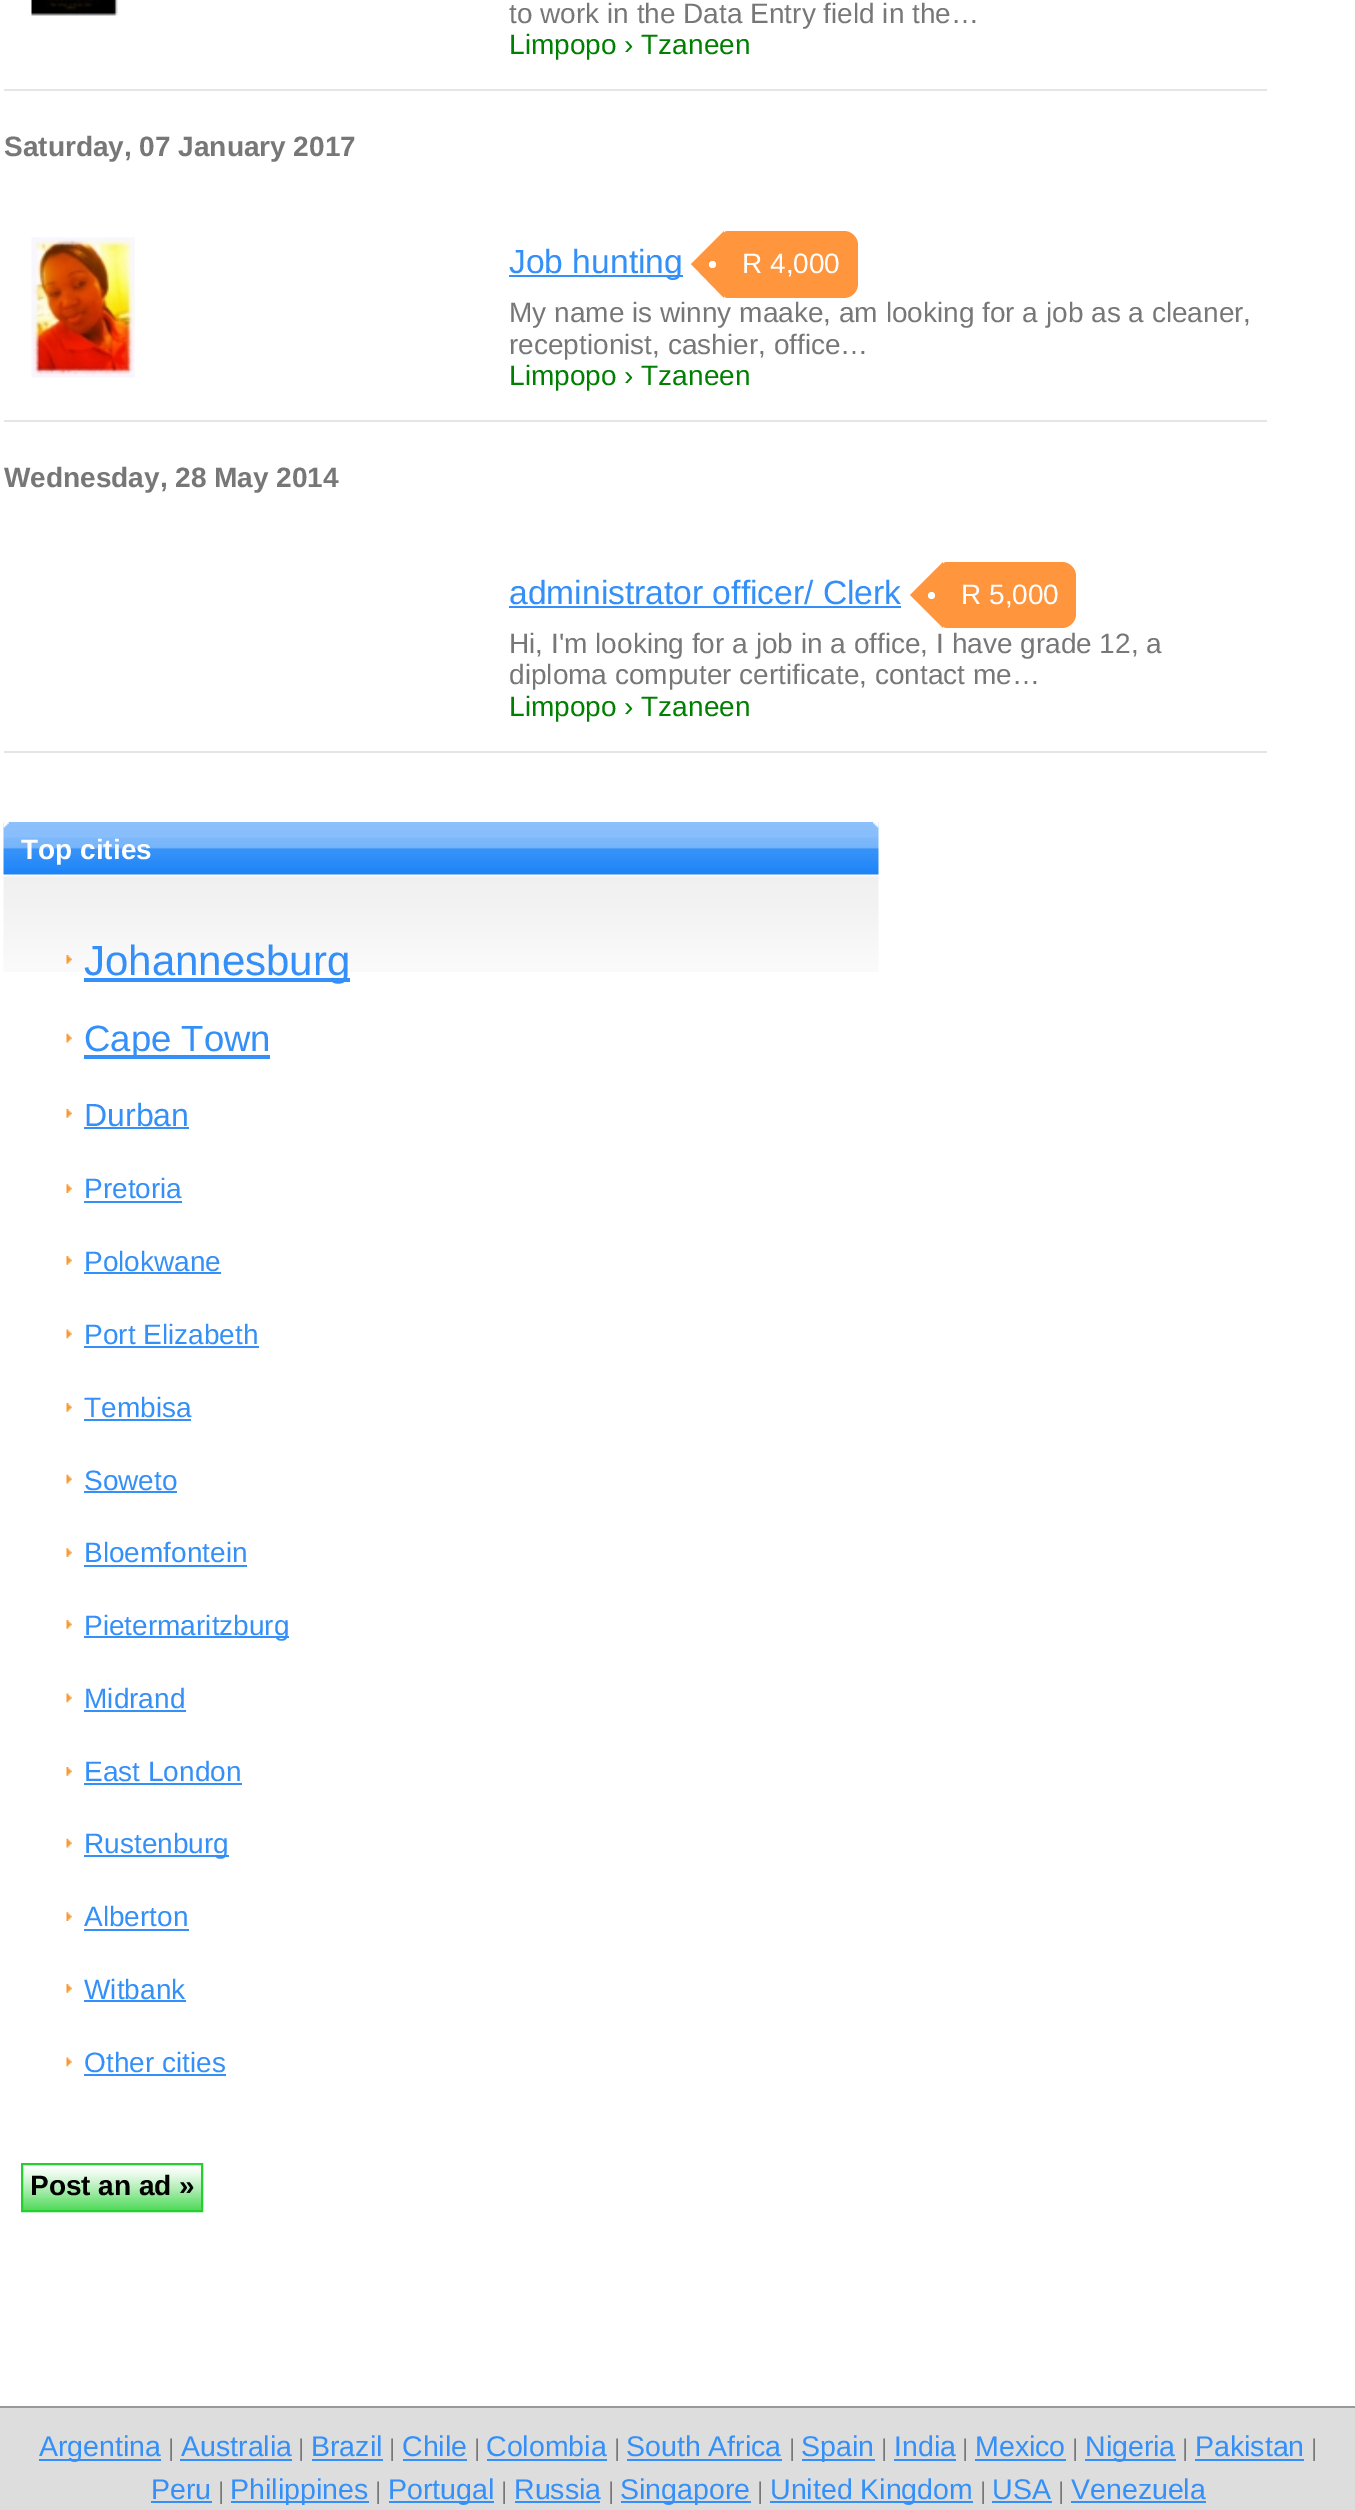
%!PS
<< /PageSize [1355 2510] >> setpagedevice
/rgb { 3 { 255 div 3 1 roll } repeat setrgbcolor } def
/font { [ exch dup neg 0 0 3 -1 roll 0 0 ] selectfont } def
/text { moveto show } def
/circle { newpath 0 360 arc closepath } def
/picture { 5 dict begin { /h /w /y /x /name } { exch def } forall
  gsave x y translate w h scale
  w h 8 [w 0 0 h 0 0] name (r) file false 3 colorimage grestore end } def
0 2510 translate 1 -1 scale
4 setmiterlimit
255 255 255 rgb
0 0 1355 2510 rectfill
229 229 229 rgb
4 89 1263 2 rectfill
(img_01.rgb) 31 0 87 17 picture
4 420 1263 2 rectfill
(img_02.rgb) 31 237 104 141 picture
52 144 248 rgb
509 275 174 2 rectfill
255 150 62 rgb
728 231 moveto 116 0 rlineto 7.5 0 14 6.5 14 14 rcurveto 0 39 rlineto 0 7.5 -6.5 14 -14 14 rcurveto -116 0 rlineto -3 0 -5 -2 -5 -5 rcurveto 0 -57 rlineto 0 -3 2 -5 5 -5 rcurveto closepath fill
724 231 moveto 0 67 rlineto -33 -34 rlineto closepath fill
255 255 255 rgb
712.5 264.5 3.5 circle fill
52 144 248 rgb
509 606 392 2 rectfill
255 150 62 rgb
947 562 moveto 115 0 rlineto 7.5 0 14 6.5 14 14 rcurveto 0 38 rlineto 0 7.5 -6.5 14 -14 14 rcurveto -115 0 rlineto -3 0 -5 -2 -5 -5 rcurveto 0 -56 rlineto 0 -3 2 -5 5 -5 rcurveto closepath fill
943 626 1 1 rectfill
943 562 moveto 0 66 rlineto -33 -33 rlineto closepath fill
255 255 255 rgb
931.5 595.5 3.5 circle fill
229 229 229 rgb
4 751 1263 2 rectfill
(img_03.rgb) 3 822 876 150 picture
(img_04.rgb) 873 822 6 6 picture
(img_05.rgb) 3 822 6 6 picture
(img_06.rgb) 66 955 6 9 picture
52 144 248 rgb
84 978 266 4 rectfill
(img_07.rgb) 66 1033 6 10 picture
84 1055 186 4 rectfill
(img_08.rgb) 66 1109 6 9 picture
84 1127 105 2 rectfill
(img_09.rgb) 66 1184 6 9 picture
84 1201 98 2 rectfill
(img_08.rgb) 66 1256 6 9 picture
84 1272 137 2 rectfill
(img_10.rgb) 66 1329 6 10 picture
84 1346 175 2 rectfill
(img_08.rgb) 66 1403 6 9 picture
84 1419 107 2 rectfill
(img_07.rgb) 66 1474 6 10 picture
84 1491 93 2 rectfill
(img_09.rgb) 66 1548 6 9 picture
84 1565 163 2 rectfill
(img_08.rgb) 66 1620 6 9 picture
84 1636 205 2 rectfill
(img_10.rgb) 66 1693 6 10 picture
84 1710 102 2 rectfill
(img_08.rgb) 66 1767 6 9 picture
84 1783 158 2 rectfill
(img_07.rgb) 66 1838 6 10 picture
84 1855 145 2 rectfill
(img_09.rgb) 66 1912 6 9 picture
84 1929 105 2 rectfill
(img_08.rgb) 66 1984 6 9 picture
84 2000 102 2 rectfill
(img_10.rgb) 66 2057 6 10 picture
84 2074 142 2 rectfill
(img_11.rgb) 23 2165 178 45 picture
35 208 48 rgb
2 setlinewidth
22 2164 180 47 rectstroke
221 221 221 rgb
0 2408 1355 102 rectfill
153 153 153 rgb
0 2406 1355 2 rectfill
52 144 248 rgb
39 2459 122 2 rectfill
180 2459 112 2 rectfill
312 2459 71 2 rectfill
403 2459 64 2 rectfill
487 2459 120 2 rectfill
627 2459 155 2 rectfill
802 2459 73 2 rectfill
894 2459 62 2 rectfill
975 2459 91 2 rectfill
1085 2459 91 2 rectfill
1195 2459 109 2 rectfill
151 2501 61 2 rectfill
231 2501 138 2 rectfill
389 2501 105 2 rectfill
515 2501 85 2 rectfill
621 2501 130 2 rectfill
770 2501 203 2 rectfill
992 2501 60 2 rectfill
1071 2501 135 2 rectfill
/LiberationSans-Regular 28 font
119 119 119 rgb
(to work in the Data Entry field in the…) 509 23 text
0 128 0 rgb
(Limpopo › Tzaneen) 509 54 text
/LiberationSans-Bold 28 font
119 119 119 rgb
(Saturday, 07 January 2017) 4 156 text
/LiberationSans-Regular 33.6 font
52 144 248 rgb
(Job hunting) 509 273 text
/LiberationSans-Regular 28 font
255 255 255 rgb
(R 4,000) 742 273 text
119 119 119 rgb
(My name is winny maake, am looking for a job as a cleaner,) 509 322 text
(receptionist, cashier, office…) 509 354 text
0 128 0 rgb
(Limpopo › Tzaneen) 509 385 text
/LiberationSans-Bold 28 font
119 119 119 rgb
(Wednesday, 28 May 2014) 4 487 text
/LiberationSans-Regular 33.6 font
52 144 248 rgb
(administrator officer/ Clerk) 509 604 text
/LiberationSans-Regular 28 font
255 255 255 rgb
(R 5,000) 961 604 text
119 119 119 rgb
(Hi, I'm looking for a job in a office, I have grade 12, a) 509 653 text
(diploma computer certificate, contact me…) 509 684 text
0 128 0 rgb
(Limpopo › Tzaneen) 509 716 text
/LiberationSans-Bold 28 font
255 255 255 rgb
(Top cities) 21 859 text
/LiberationSans-Regular 42 font
52 144 248 rgb
(Johannesburg) 84 975 text
/LiberationSans-Regular 36.5 font
(Cape Town) 84 1051 text
/LiberationSans-Regular 32 font
(Durban) 84 1126 text
/LiberationSans-Regular 28 font
(Pretoria) 84 1198 text
(Polokwane) 84 1271 text
(Port Elizabeth) 84 1344 text
(Tembisa) 84 1417 text
(Soweto) 84 1490 text
(Bloemfontein) 84 1562 text
(Pietermaritzburg) 84 1635 text
(Midrand) 84 1708 text
(East London) 84 1781 text
(Rustenburg) 84 1853 text
(Alberton) 84 1926 text
(Witbank) 84 1999 text
(Other cities) 84 2072 text
/LiberationSans-Bold 28 font
0 0 0 rgb
(Post an ad ») 30 2195 text
/LiberationSans-Regular 28.5 font
52 144 248 rgb
(Argentina) 39 2456 text
/LiberationSans-Regular 24 font
119 119 119 rgb
(|) 168 2456 text
/LiberationSans-Regular 28.5 font
52 144 248 rgb
(Australia) 181 2456 text
/LiberationSans-Regular 24 font
119 119 119 rgb
(|) 298 2456 text
/LiberationSans-Regular 28.5 font
52 144 248 rgb
(Brazil) 311 2456 text
/LiberationSans-Regular 24 font
119 119 119 rgb
(|) 389 2456 text
/LiberationSans-Regular 28.5 font
52 144 248 rgb
(Chile) 402 2456 text
/LiberationSans-Regular 24 font
119 119 119 rgb
(|) 474 2456 text
/LiberationSans-Regular 28.5 font
52 144 248 rgb
(Colombia) 486 2456 text
/LiberationSans-Regular 24 font
119 119 119 rgb
(|) 614 2456 text
/LiberationSans-Regular 28.5 font
52 144 248 rgb
(South Africa) 626 2456 text
/LiberationSans-Regular 24 font
119 119 119 rgb
(|) 789 2456 text
/LiberationSans-Regular 28.5 font
52 144 248 rgb
(Spain) 801 2456 text
/LiberationSans-Regular 24 font
119 119 119 rgb
(|) 881 2456 text
/LiberationSans-Regular 28.5 font
52 144 248 rgb
(India) 894 2456 text
/LiberationSans-Regular 24 font
119 119 119 rgb
(|) 962 2456 text
/LiberationSans-Regular 28.5 font
52 144 248 rgb
(Mexico) 975 2456 text
/LiberationSans-Regular 24 font
119 119 119 rgb
(|) 1072 2456 text
/LiberationSans-Regular 28.5 font
52 144 248 rgb
(Nigeria) 1085 2456 text
/LiberationSans-Regular 24 font
119 119 119 rgb
(|) 1182 2456 text
/LiberationSans-Regular 28.5 font
52 144 248 rgb
(Pakistan) 1195 2456 text
/LiberationSans-Regular 24 font
119 119 119 rgb
(|) 1311 2456 text
/LiberationSans-Regular 28.5 font
52 144 248 rgb
(Peru) 151 2499 text
/LiberationSans-Regular 24 font
119 119 119 rgb
(|) 218 2499 text
/LiberationSans-Regular 28.5 font
52 144 248 rgb
(Philippines) 230 2499 text
/LiberationSans-Regular 24 font
119 119 119 rgb
(|) 375 2499 text
/LiberationSans-Regular 28.5 font
52 144 248 rgb
(Portugal) 388 2499 text
/LiberationSans-Regular 24 font
119 119 119 rgb
(|) 501 2499 text
/LiberationSans-Regular 28.5 font
52 144 248 rgb
(Russia) 514 2499 text
/LiberationSans-Regular 24 font
119 119 119 rgb
(|) 608 2499 text
/LiberationSans-Regular 28.5 font
52 144 248 rgb
(Singapore) 620 2499 text
/LiberationSans-Regular 24 font
119 119 119 rgb
(|) 757 2499 text
/LiberationSans-Regular 28.5 font
52 144 248 rgb
(United Kingdom) 770 2499 text
/LiberationSans-Regular 24 font
119 119 119 rgb
(|) 980 2499 text
/LiberationSans-Regular 28.5 font
52 144 248 rgb
(USA) 992 2499 text
/LiberationSans-Regular 24 font
119 119 119 rgb
(|) 1058 2499 text
/LiberationSans-Regular 28.5 font
52 144 248 rgb
(Venezuela) 1071 2499 text
showpage
